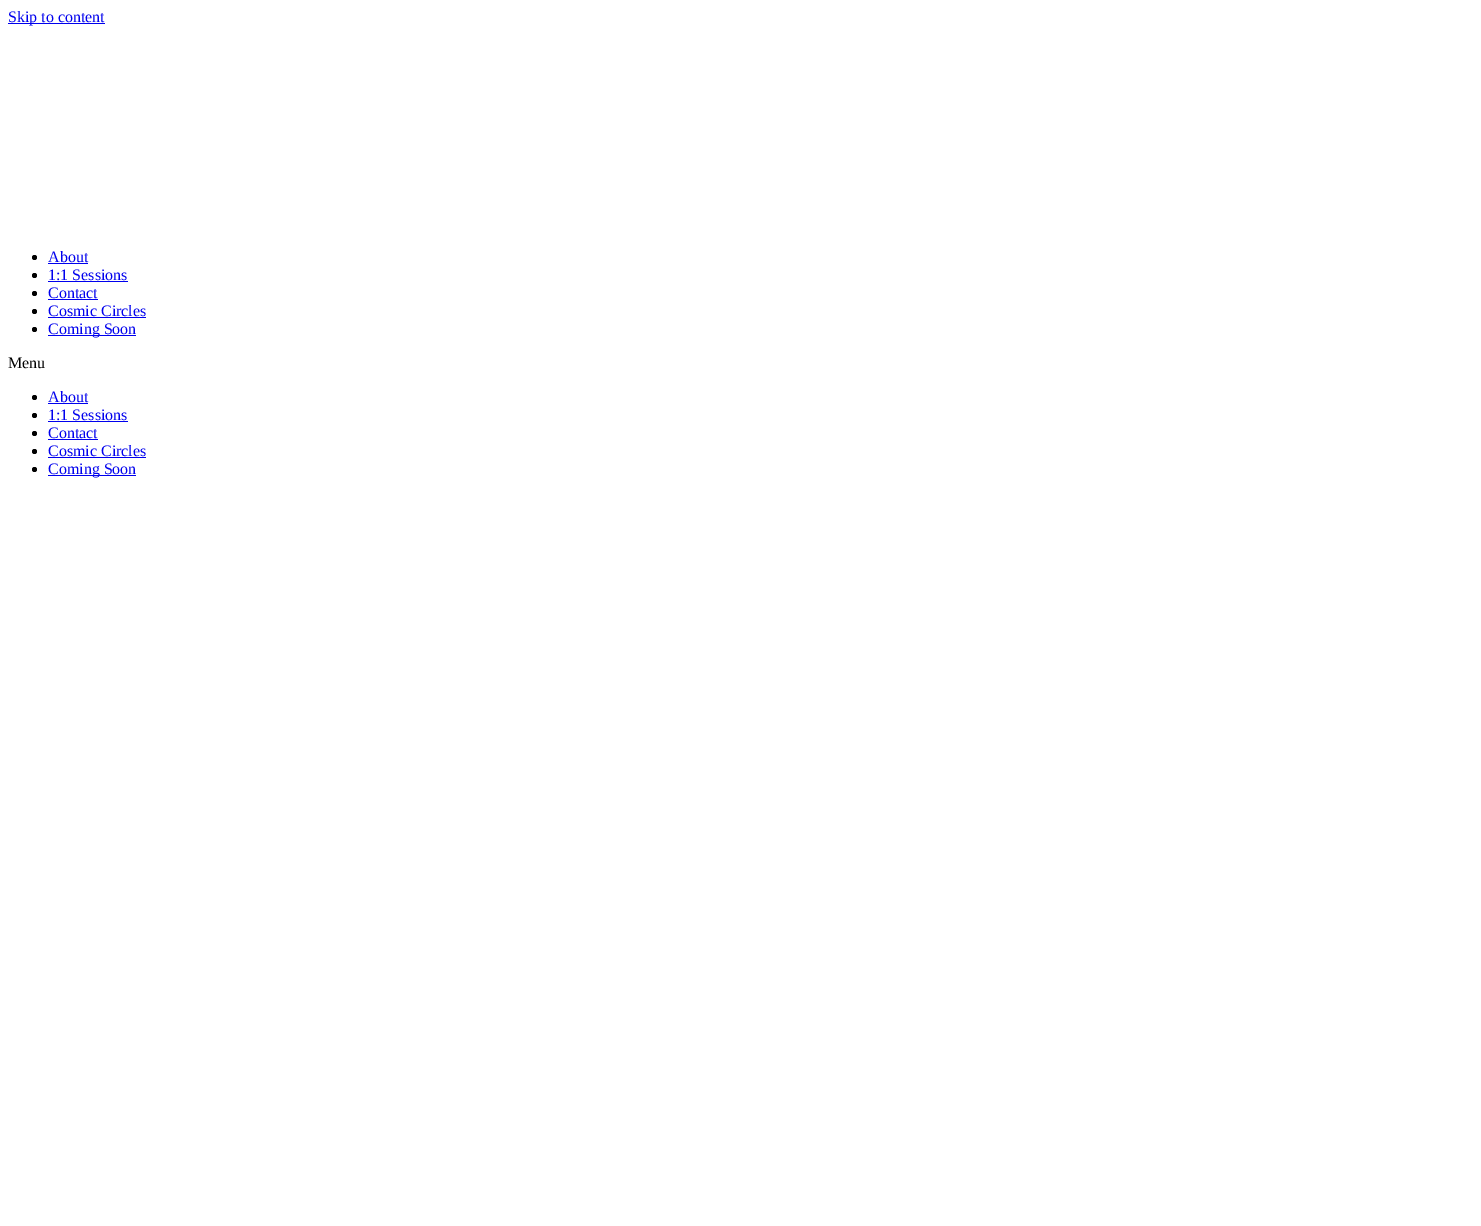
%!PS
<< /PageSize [1481 1226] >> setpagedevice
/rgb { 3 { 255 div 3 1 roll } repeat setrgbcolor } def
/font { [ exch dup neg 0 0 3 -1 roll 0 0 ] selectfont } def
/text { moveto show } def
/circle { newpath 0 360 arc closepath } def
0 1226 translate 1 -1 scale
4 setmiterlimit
255 255 255 rgb
0 0 1481 1226 rectfill
0 0 238 rgb
8 23 97 1 rectfill
0 0 0 rgb
34.5 257.5 2.5 circle fill
0 0 238 rgb
48 263 40 1 rectfill
0 0 0 rgb
34.5 275.5 2.5 circle fill
0 0 238 rgb
48 281 80 1 rectfill
0 0 0 rgb
34.5 293.5 2.5 circle fill
0 0 238 rgb
48 299 50 1 rectfill
0 0 0 rgb
34.5 311.5 2.5 circle fill
0 0 238 rgb
48 317 98 1 rectfill
0 0 0 rgb
34.5 329.5 2.5 circle fill
0 0 238 rgb
48 335 88 1 rectfill
0 0 0 rgb
34.5 397.5 2.5 circle fill
0 0 238 rgb
48 403 40 1 rectfill
0 0 0 rgb
34.5 415.5 2.5 circle fill
0 0 238 rgb
48 421 80 1 rectfill
0 0 0 rgb
34.5 433.5 2.5 circle fill
0 0 238 rgb
48 439 50 1 rectfill
0 0 0 rgb
34.5 451.5 2.5 circle fill
0 0 238 rgb
48 457 98 1 rectfill
0 0 0 rgb
34.5 469.5 2.5 circle fill
0 0 238 rgb
48 475 88 1 rectfill
/LiberationSerif-Regular 16 font
(Skip to content) 8 22 text
(About) 48 262 text
(1:1 Sessions) 48 280 text
(Contact) 48 298 text
(Cosmic Circles) 48 316 text
(Coming Soon) 48 334 text
0 0 0 rgb
(Menu) 8 368 text
0 0 238 rgb
(About) 48 402 text
(1:1 Sessions) 48 420 text
(Contact) 48 438 text
(Cosmic Circles) 48 456 text
(Coming Soon) 48 474 text
showpage
